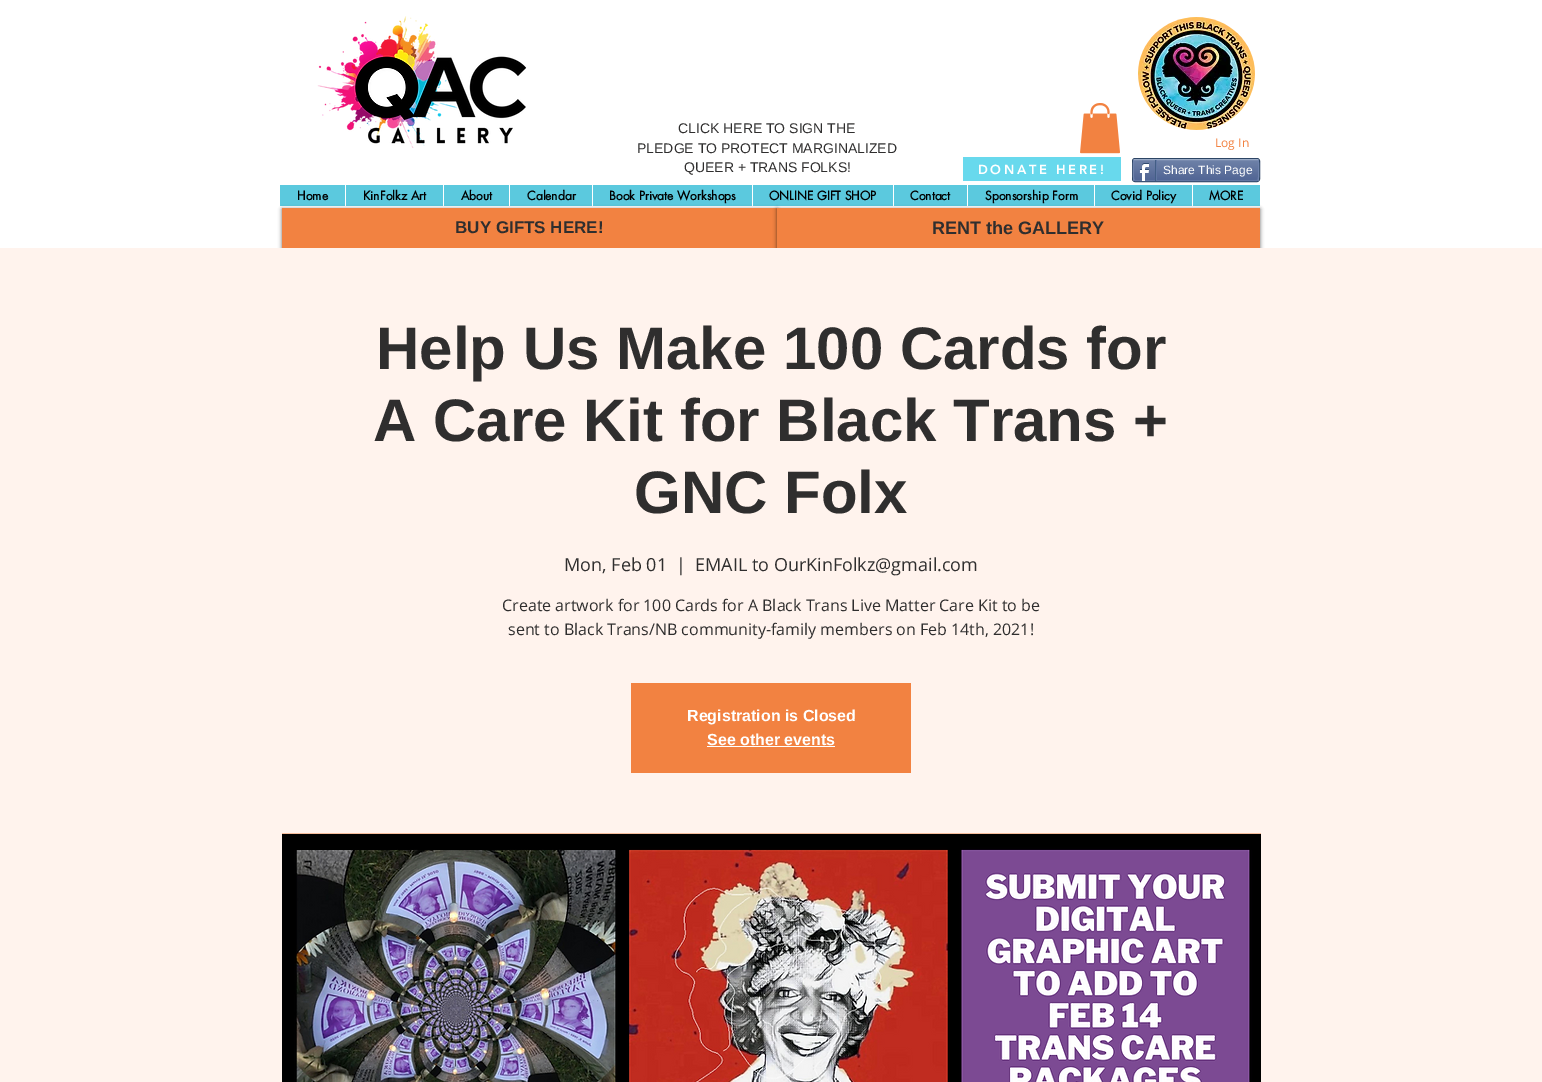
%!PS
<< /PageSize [1542 1082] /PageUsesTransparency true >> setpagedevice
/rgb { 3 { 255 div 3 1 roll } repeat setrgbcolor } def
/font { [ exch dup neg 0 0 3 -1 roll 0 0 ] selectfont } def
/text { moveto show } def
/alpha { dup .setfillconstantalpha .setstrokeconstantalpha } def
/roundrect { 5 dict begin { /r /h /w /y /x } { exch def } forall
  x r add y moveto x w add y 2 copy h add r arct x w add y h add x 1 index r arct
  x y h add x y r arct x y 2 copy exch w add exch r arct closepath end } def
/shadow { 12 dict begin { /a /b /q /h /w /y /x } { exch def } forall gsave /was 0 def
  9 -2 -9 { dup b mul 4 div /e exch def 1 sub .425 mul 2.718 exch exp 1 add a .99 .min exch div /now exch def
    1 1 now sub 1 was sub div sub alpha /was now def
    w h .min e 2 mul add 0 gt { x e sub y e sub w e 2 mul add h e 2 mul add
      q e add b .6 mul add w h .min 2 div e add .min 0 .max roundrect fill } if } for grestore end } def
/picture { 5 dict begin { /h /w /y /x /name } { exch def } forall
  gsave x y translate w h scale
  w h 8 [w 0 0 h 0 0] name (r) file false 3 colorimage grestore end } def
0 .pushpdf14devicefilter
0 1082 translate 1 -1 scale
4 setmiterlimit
255 255 255 rgb
0 0 1542 1082 rectfill
(img_01.rgb) 317 16 210 132 picture
(img_02.rgb) 1080 103 40 51 picture
(img_03.rgb) 1138 17 117 113 picture
104 217 237 rgb
963 157 158 24 rectfill
45 69 101 rgb
1132.5 158.5 127 23 2.5 roundrect stroke
(img_04.rgb) 1133 160 126 21 picture
154 171 198 rgb
1134 160 moveto 1 -0.5 rlineto 122 0 rlineto 1 0.5 rlineto stroke
111 131 173 rgb
1258 160 moveto 1 0.5 1 19.5 0 20 rcurveto stroke
97 118 163 rgb
1258 180 moveto -1 0.5 rlineto -122 0 rlineto -1 -0.5 rlineto stroke
111 131 173 rgb
1134 180 moveto -1 -0.5 -1 -19.5 0 -20 rcurveto stroke
(img_05.rgb) 1139 163 10 18 picture
66 94 133 rgb
1155 160 1 21 rectfill
97 118 163 rgb
1156 160 1 20 rectfill
91 201 222 rgb
280 185 980 21 rectfill
255 255 255 rgb
345 185 1 21 rectfill
443 185 1 21 rectfill
509 185 1 21 rectfill
592 185 1 21 rectfill
752 185 1 21 rectfill
893 185 1 21 rectfill
967 185 1 21 rectfill
1094 185 1 21 rectfill
1192 185 1 21 rectfill
0 0 0 rgb
282 209 495 40 0 2 0.6 shadow
242 130 65 rgb
282 208 495 40 rectfill
0 0 0 rgb
777 209 483 40 0 2 0.6 shadow
242 130 65 rgb
777 208 483 40 rectfill
255 243 237 rgb
0 248 1542 834 rectfill
242 130 65 rgb
631 683 280 90 rectfill
255 255 255 rgb
707 746 128 1 rectfill
246 189 156 rgb
282 833 979 1 rectfill
(img_06.rgb) 282 834 979 248 picture
/LiberationSans-Regular 14 font
47 46 46 rgb
(CLICK HERE TO SIGN THE) 678 133 text
(PLEDGE TO PROTECT MARGINALIZED) 637 153 text
(QUEER + TRANS FOLKS!) 684 172 text
/OpenSans-Regular 12 font
242 130 65 rgb
(Log In) 1215 147 text
/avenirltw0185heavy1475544-Black 13 font
255 255 255 rgb
978 174 moveto 2.6 0 (DONATE HERE!) ashow
/LiberationSans-Regular 12 font
(Share This Page) 1163 174 text
/futura-Bold 12 font
0 0 0 rgb
(Home) 297 200 text
(KinFolkz Art) 363 200 text
(About) 461 200 text
(Calendar) 527 200 text
(Book Private Workshops) 609 200 text
(ONLINE GIFT SHOP) 769 200 text
(Contact) 910 200 text
(Sponsorship Form) 985 200 text
(Covid Policy) 1111 200 text
(MORE) 1209 200 text
/LiberationSans-Bold 17 font
47 46 46 rgb
(BUY GIFTS HERE!) 455 233 text
/LiberationSans-Bold 18 font
(RENT the GALLERY) 932 234 text
/LiberationSans-Bold 60 font
(Help Us Make 100 Cards for) 376 369 text
(A Care Kit for Black Trans +) 373 441 text
(GNC Folx) 634 513 text
/OpenSans-Regular 18 font
(Mon, Feb 01) 564 571 text
(|) 676 571 text
(EMAIL to OurKinFolkz@gmail.com) 695 571 text
/OpenSans-Regular 16 font
(Create artwork for 100 Cards for A Black Trans Live Matter Care Kit to be) 502 611 text
(sent to Black Trans/NB community-family members on Feb 14th, 2021!) 508 635 text
/LiberationSans-Bold 16 font
255 255 255 rgb
(Registration is Closed) 687 721 text
(See other events) 707 745 text
.poppdf14devicefilter showpage
